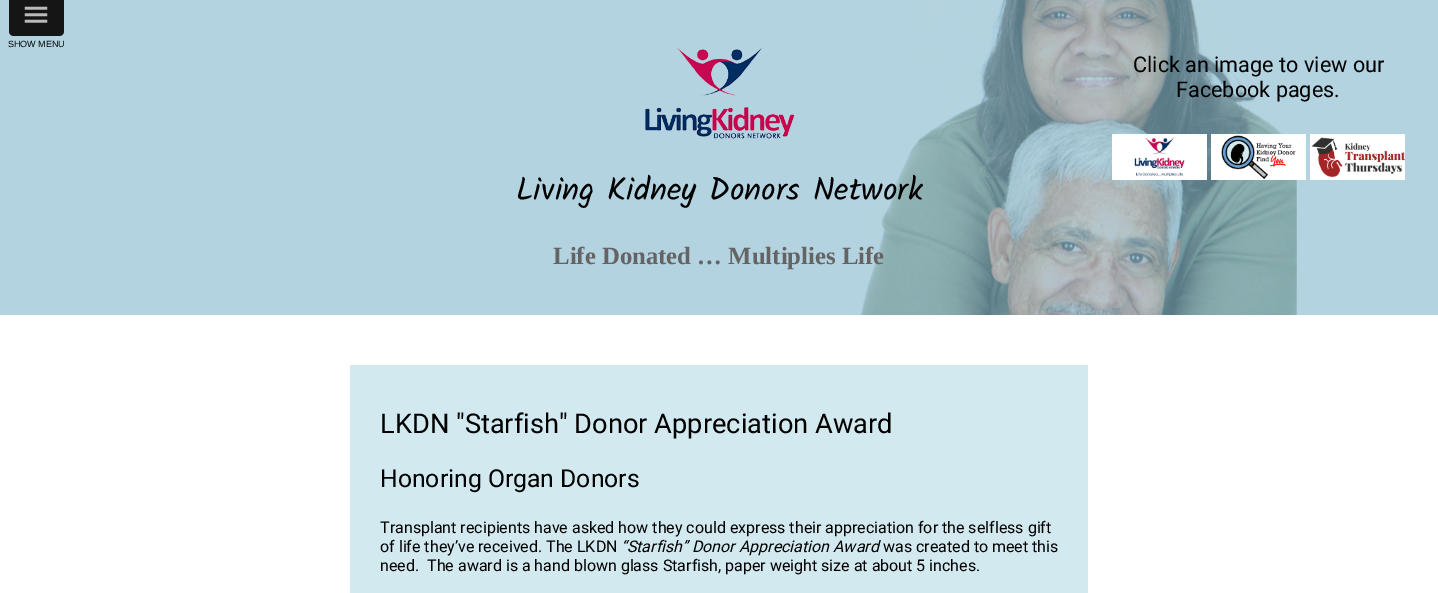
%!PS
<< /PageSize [1438 593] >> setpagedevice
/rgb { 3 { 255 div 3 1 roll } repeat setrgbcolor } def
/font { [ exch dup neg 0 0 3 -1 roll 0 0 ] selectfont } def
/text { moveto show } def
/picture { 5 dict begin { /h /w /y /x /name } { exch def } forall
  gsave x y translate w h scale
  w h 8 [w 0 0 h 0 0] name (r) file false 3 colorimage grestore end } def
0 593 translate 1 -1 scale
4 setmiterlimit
255 255 255 rgb
0 0 1438 593 rectfill
180 211 224 rgb
0 0 1438 315 rectfill
21 21 21 rgb
9 0 moveto 55 0 rlineto 0 31 rlineto 0 3 -2 5 -5 5 rcurveto -45 0 rlineto -3 0 -5 -2 -5 -5 rcurveto closepath fill
(img_01.rgb) 860 0 437 315 picture
(img_02.rgb) 1112 134 95 46 picture
(img_03.rgb) 1211 134 95 46 picture
(img_04.rgb) 1310 134 95 46 picture
(img_05.rgb) 645 47 150 92 picture
210 233 240 rgb
350 365 738 228 rectfill
/DejaVuSans-Regular 36 font
187 187 187 rgb
(≡) 21 26 text
/LiberationSans-Regular 9 font
0 0 0 rgb
(SHOW MENU) 8 47 text
/Roboto-Regular 21.6 font
(Click an image to view our) 1133 72 text
(Facebook pages.) 1176 97 text
/Kalam-Regular 32 font
(Living Kidney Donors Network) 516 200 text
/LiberationSerif-Bold 24.75 font
100 100 100 rgb
(Life Donated … Multiplies Life) 553 264 text
/Roboto-Regular 27.25 font
0 0 0 rgb
(LKDN "Starfish" Donor Appreciation Award) 380 433 text
/Roboto-Regular 24.75 font
(Honoring Organ Donors) 380 487 text
/Roboto-Regular 16 font
(Transplant recipients have asked how they could express their appreciation for the selfless gift) 380 533 text
(of life they’ve received. The LKDN) 380 552 text
/Roboto-Italic 16 font
(“Starfish” Donor Appreciation Award) 621 552 text
/Roboto-Regular 16 font
(was created to meet this) 883 552 text
(need.  The award is a hand blown glass Starfish, paper weight size at about 5 inches.) 380 571 text
showpage
